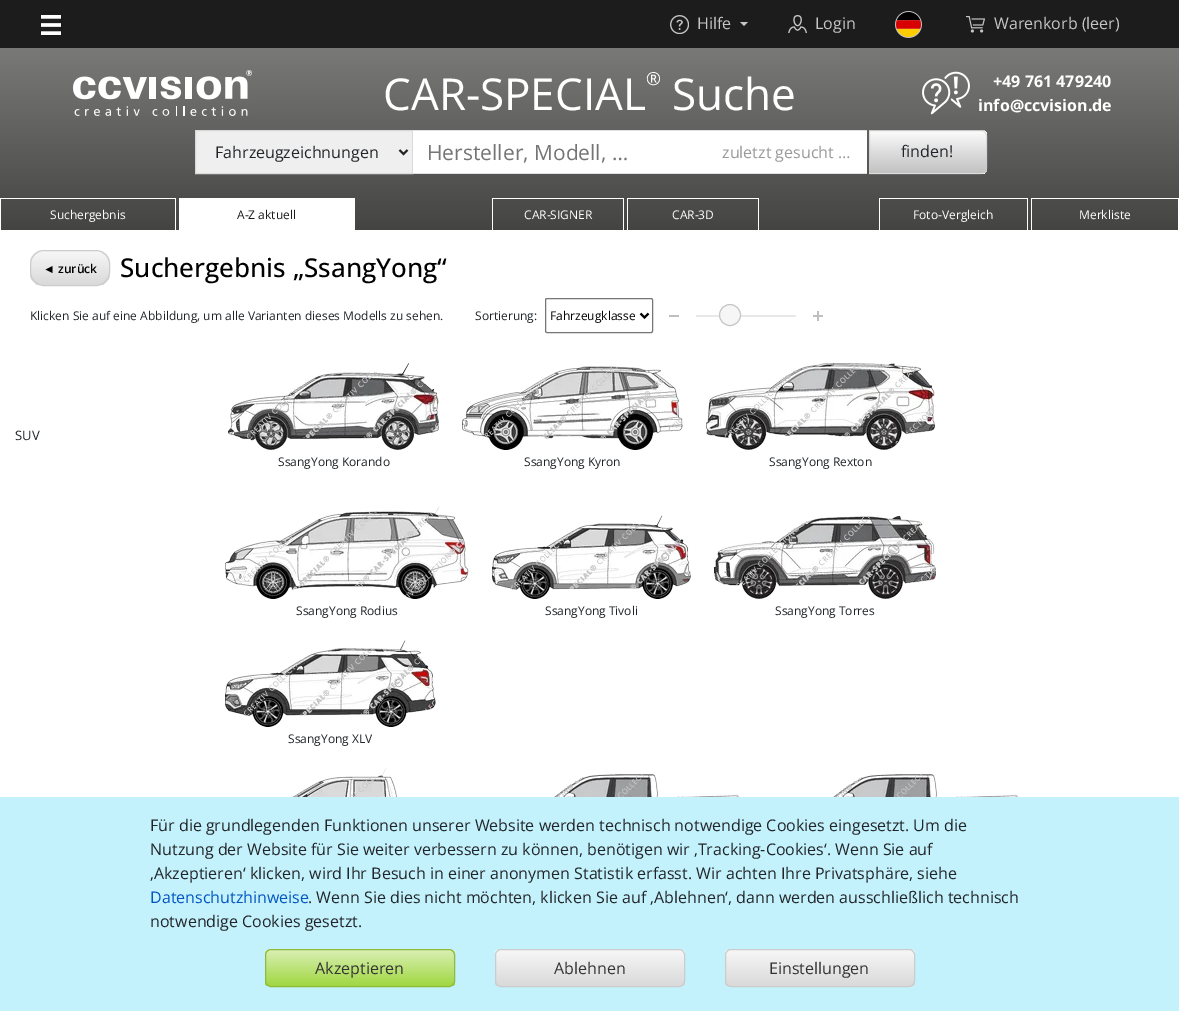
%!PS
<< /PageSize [1179 1011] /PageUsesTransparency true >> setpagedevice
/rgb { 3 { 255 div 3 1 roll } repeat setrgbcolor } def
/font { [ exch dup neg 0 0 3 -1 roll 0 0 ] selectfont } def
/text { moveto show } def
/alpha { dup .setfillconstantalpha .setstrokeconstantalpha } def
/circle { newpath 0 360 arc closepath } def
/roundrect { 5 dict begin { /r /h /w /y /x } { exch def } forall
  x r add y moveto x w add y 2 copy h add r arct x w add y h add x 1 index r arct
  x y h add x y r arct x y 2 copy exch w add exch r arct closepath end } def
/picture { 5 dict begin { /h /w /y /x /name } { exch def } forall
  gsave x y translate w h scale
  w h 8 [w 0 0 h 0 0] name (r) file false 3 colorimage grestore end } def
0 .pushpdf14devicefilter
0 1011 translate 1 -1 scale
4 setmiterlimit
255 255 255 rgb
0 0 1179 1011 rectfill
28 28 28 rgb
0 0 1179 48 rectfill
24 24 24 rgb
40.5 12.5 21 23 5.5 roundrect stroke
(img_01.rgb) 41 15 20 20 picture
(img_02.rgb) 670 15 19 19 picture
198 198 198 rgb
740 22 moveto 8 0 rlineto -4 4 rlineto closepath fill
(img_03.rgb) 788 15 19 18 picture
(img_04.rgb) 895 11 27 27 picture
(img_05.rgb) 966 16 19 17 picture
gsave 0 48 moveto 1179 0 rlineto 0 182 rlineto -1179 0 rlineto closepath clip newpath
<< /ShadingType 2 /ColorSpace /DeviceRGB /Coords [590 48 590 230] /Extend [true true] /Function << /FunctionType 3 /Domain [0 1] /Functions [<< /FunctionType 2 /Domain [0 1] /C0 [0.475 0.475 0.471] /C1 [0.373 0.373 0.365] /N 1 >> << /FunctionType 2 /Domain [0 1] /C0 [0.373 0.373 0.365] /C1 [0.267 0.267 0.263] /N 1 >>] /Bounds [0.5] /Encode [0 1 0 1] >> >> shfill grestore
(img_06.rgb) 73 70 179 46 picture
(img_07.rgb) 922 71 48 44 picture
239 239 239 rgb
195.5 130.5 moveto 217 0 rlineto 0 43 rlineto -217 0 rlineto closepath gsave fill grestore
218 218 218 rgb
stroke
33 37 41 rgb
2 setlinewidth
399.5 150 moveto 4 4 rlineto 4 -4 rlineto stroke
255 255 255 rgb
413 131 454 42 rectfill
224 224 224 rgb
413 130 454 1 rectfill
413 173 454 1 rectfill
gsave
869 130 moveto 112 0 rlineto 3.5 0 6 2.5 6 6 rcurveto 0 32 rlineto 0 3.5 -2.5 6 -6 6 rcurveto -112 0 rlineto closepath clip newpath
gsave 869 130 moveto 118 0 rlineto 0 1 rlineto -118 0 rlineto closepath clip newpath
<< /ShadingType 2 /ColorSpace /DeviceRGB /Coords [928 89 928 131] /Extend [true true] /Function << /FunctionType 3 /Domain [0 1] /Functions [<< /FunctionType 2 /Domain [0 1] /C0 [0.988 0.988 0.988] /C1 [0.867 0.867 0.867] /N 1 >> << /FunctionType 2 /Domain [0 1] /C0 [0.867 0.867 0.867] /C1 [0.761 0.761 0.761] /N 1 >>] /Bounds [0.5] /Encode [0 1 0 1] >> >> shfill grestore
gsave 869 131 moveto 118 0 rlineto 0 42 rlineto -118 0 rlineto closepath clip newpath
<< /ShadingType 2 /ColorSpace /DeviceRGB /Coords [928 131 928 173] /Extend [true true] /Function << /FunctionType 3 /Domain [0 1] /Functions [<< /FunctionType 2 /Domain [0 1] /C0 [0.988 0.988 0.988] /C1 [0.867 0.867 0.867] /N 1 >> << /FunctionType 2 /Domain [0 1] /C0 [0.867 0.867 0.867] /C1 [0.761 0.761 0.761] /N 1 >>] /Bounds [0.5] /Encode [0 1 0 1] >> >> shfill grestore
gsave 869 173 moveto 118 0 rlineto 0 1 rlineto -118 0 rlineto closepath clip newpath
<< /ShadingType 2 /ColorSpace /DeviceRGB /Coords [928 173 928 215] /Extend [true true] /Function << /FunctionType 3 /Domain [0 1] /Functions [<< /FunctionType 2 /Domain [0 1] /C0 [0.988 0.988 0.988] /C1 [0.867 0.867 0.867] /N 1 >> << /FunctionType 2 /Domain [0 1] /C0 [0.867 0.867 0.867] /C1 [0.761 0.761 0.761] /N 1 >>] /Bounds [0.5] /Encode [0 1 0 1] >> >> shfill grestore
grestore
0.6 alpha
204 204 204 rgb
1 setlinewidth
869.5 130.5 moveto 111.5 0 rlineto 3 0 5.5 2.5 5.5 5.5 rcurveto 0 32 rlineto 0 3 -2.5 5.5 -5.5 5.5 rcurveto -111.5 0 rlineto closepath stroke
1 alpha
255 255 255 rgb
0 198 176 1 rectfill
175 198 1 32 rectfill
0 198 1 32 rectfill
180 199 174 31 rectfill
179 198 176 1 rectfill
354 198 1 32 rectfill
179 198 1 32 rectfill
492 198 132 1 rectfill
623 198 1 32 rectfill
492 198 1 32 rectfill
627 198 132 1 rectfill
758 198 1 32 rectfill
627 198 1 32 rectfill
879 198 149 1 rectfill
1027 198 1 32 rectfill
879 198 1 32 rectfill
1031 198 148 1 rectfill
1178 198 1 32 rectfill
1031 198 1 32 rectfill
gsave
30 250 80 36 14 roundrect clip newpath
gsave 30 251 moveto 80 0 rlineto 0 34 rlineto -80 0 rlineto closepath clip newpath
<< /ShadingType 2 /ColorSpace /DeviceRGB /Coords [70 251 70 285] /Extend [true true] /Function << /FunctionType 2 /Domain [0 1] /C0 [0.969 0.969 0.969] /C1 [0.851 0.851 0.851] /N 1 >> >> shfill grestore
grestore
204 204 204 rgb
30.5 250.5 79 35 13.5 roundrect stroke
118 118 118 rgb
545.5 298.5 107 34 1.5 roundrect stroke
0 0 0 rgb
2 setlinewidth
640.5 313.5 moveto 4 4 rlineto 4 -4 rlineto stroke
232 232 232 rgb
696 315 100 2 1 roundrect fill
191 191 191 rgb
669 315 10 2 rectfill
246 246 246 rgb
730 315 10.5 circle gsave fill grestore
197 197 197 rgb
1 setlinewidth
stroke
(img_08.rgb) 813 311 10 10 picture
(img_09.rgb) 228 363 211 87 picture
(img_10.rgb) 462 366 221 84 picture
(img_11.rgb) 706 363 229 87 picture
(img_12.rgb) 225 506 244 93 picture
(img_13.rgb) 492 515 199 84 picture
(img_14.rgb) 714 516 222 83 picture
(img_15.rgb) 225 640 211 87 picture
(img_16.rgb) 292 768 106 29 picture
(img_17.rgb) 553 774 187 23 picture
(img_17.rgb) 832 774 187 23 picture
195 242 252 rgb
0 797 1179 214 rectfill
gsave
265 949 190 38 6 roundrect clip newpath
gsave 265 950 moveto 190 0 rlineto 0 36 rlineto -190 0 rlineto closepath clip newpath
<< /ShadingType 2 /ColorSpace /DeviceRGB /Coords [360 950 360 986] /Extend [true true] /Function << /FunctionType 2 /Domain [0 1] /C0 [0.851 0.937 0.702] /C1 [0.627 0.843 0.255] /N 1 >> >> shfill grestore
grestore
144 186 60 rgb
265.5 949.5 189 37 5.5 roundrect stroke
gsave
495 949 190 38 6 roundrect clip newpath
gsave 495 950 moveto 190 0 rlineto 0 36 rlineto -190 0 rlineto closepath clip newpath
<< /ShadingType 2 /ColorSpace /DeviceRGB /Coords [590 950 590 986] /Extend [true true] /Function << /FunctionType 2 /Domain [0 1] /C0 [0.969 0.969 0.969] /C1 [0.851 0.851 0.851] /N 1 >> >> shfill grestore
grestore
204 204 204 rgb
495.5 949.5 189 37 5.5 roundrect stroke
gsave
725 949 190 38 6 roundrect clip newpath
gsave 725 950 moveto 190 0 rlineto 0 36 rlineto -190 0 rlineto closepath clip newpath
<< /ShadingType 2 /ColorSpace /DeviceRGB /Coords [820 950 820 986] /Extend [true true] /Function << /FunctionType 2 /Domain [0 1] /C0 [0.969 0.969 0.969] /C1 [0.851 0.851 0.851] /N 1 >> >> shfill grestore
grestore
725.5 949.5 189 37 5.5 roundrect stroke
/OpenSans-Regular 16 font
198 198 198 rgb
(Hilfe) 697 29 text
(Login) 815 29 text
(Warenkorb \(leer\)) 994 29 text
/OpenSans-Regular 44 font
255 255 255 rgb
(CAR-SPECIAL) 383 110 text
/OpenSans-Regular 18 font
(®) 646 85 text
/OpenSans-Regular 44 font
(Suche) 672 110 text
/OpenSans-Bold 16 font
(+49 761 479240) 993 87 text
(info@ccvision.de) 978 111 text
/OpenSans-Regular 16 font
33 37 41 rgb
(Fahrzeugzeichnungen) 215 158 text
/OpenSans-Regular 21 font
117 117 117 rgb
(Hersteller, Modell, …) 427 160 text
/OpenSans-Regular 16 font
153 153 153 rgb
(zuletzt gesucht …) 722 158 text
33 37 41 rgb
(finden!) 901 157 text
/OpenSans-Regular 12 font
255 255 255 rgb
(Suchergebnis) 50 219 text
27 27 27 rgb
(A-Z aktuell) 237 219 text
255 255 255 rgb
(CAR-SIGNER) 524 219 text
(CAR-3D) 672 219 text
(Foto-Vergleich) 913 219 text
(Merkliste) 1079 219 text
/LiberationSans-Bold 12 font
0 0 0 rgb
(◄) 43 273 text
/OpenSans-SemiBold 12 font
(zurück) 58 273 text
/OpenSans-Medium 26 font
(Suchergebnis „SsangYong“) 120 277 text
/OpenSans-Regular 12 font
33 37 41 rgb
(Klicken Sie auf eine Abbildung, um alle Varianten dieses Modells zu sehen.) 30 320 text
(Sortierung:) 475 320 text
0 0 0 rgb
(Fahrzeugklasse) 550 320 text
/OpenSans-Regular 13 font
33 37 41 rgb
(SUV) 15 440 text
/OpenSans-Regular 12 font
(SsangYong Korando) 278 466 text
(SsangYong Kyron) 524 466 text
(SsangYong Rexton) 769 466 text
(SsangYong Rodius) 296 615 text
(SsangYong Tivoli) 545 615 text
(SsangYong Torres) 775 615 text
(SsangYong XLV) 288 743 text
/OpenSans-Regular 16 font
(Für die grundlegenden Funktionen unserer Website werden technisch notwendige Cookies eingesetzt. Um die) 150 831 text
(Nutzung der Website für Sie weiter verbessern zu können, benötigen wir ‚Tracking-Cookies‘. Wenn Sie auf) 150 855 text
(‚Akzeptieren‘ klicken, wird Ihr Besuch in einer anonymen Statistik erfasst. Wir achten Ihre Privatsphäre, siehe) 150 879 text
2 84 193 rgb
(Datenschutzhinweise) 150 903 text
33 37 41 rgb
(. Wenn Sie dies nicht möchten, klicken Sie auf ‚Ablehnen‘, dann werden ausschließlich technisch) 308 903 text
(notwendige Cookies gesetzt.) 150 927 text
51 51 51 rgb
(Akzeptieren) 315 974 text
(Ablehnen) 554 974 text
(Einstellungen) 769 974 text
.poppdf14devicefilter showpage
